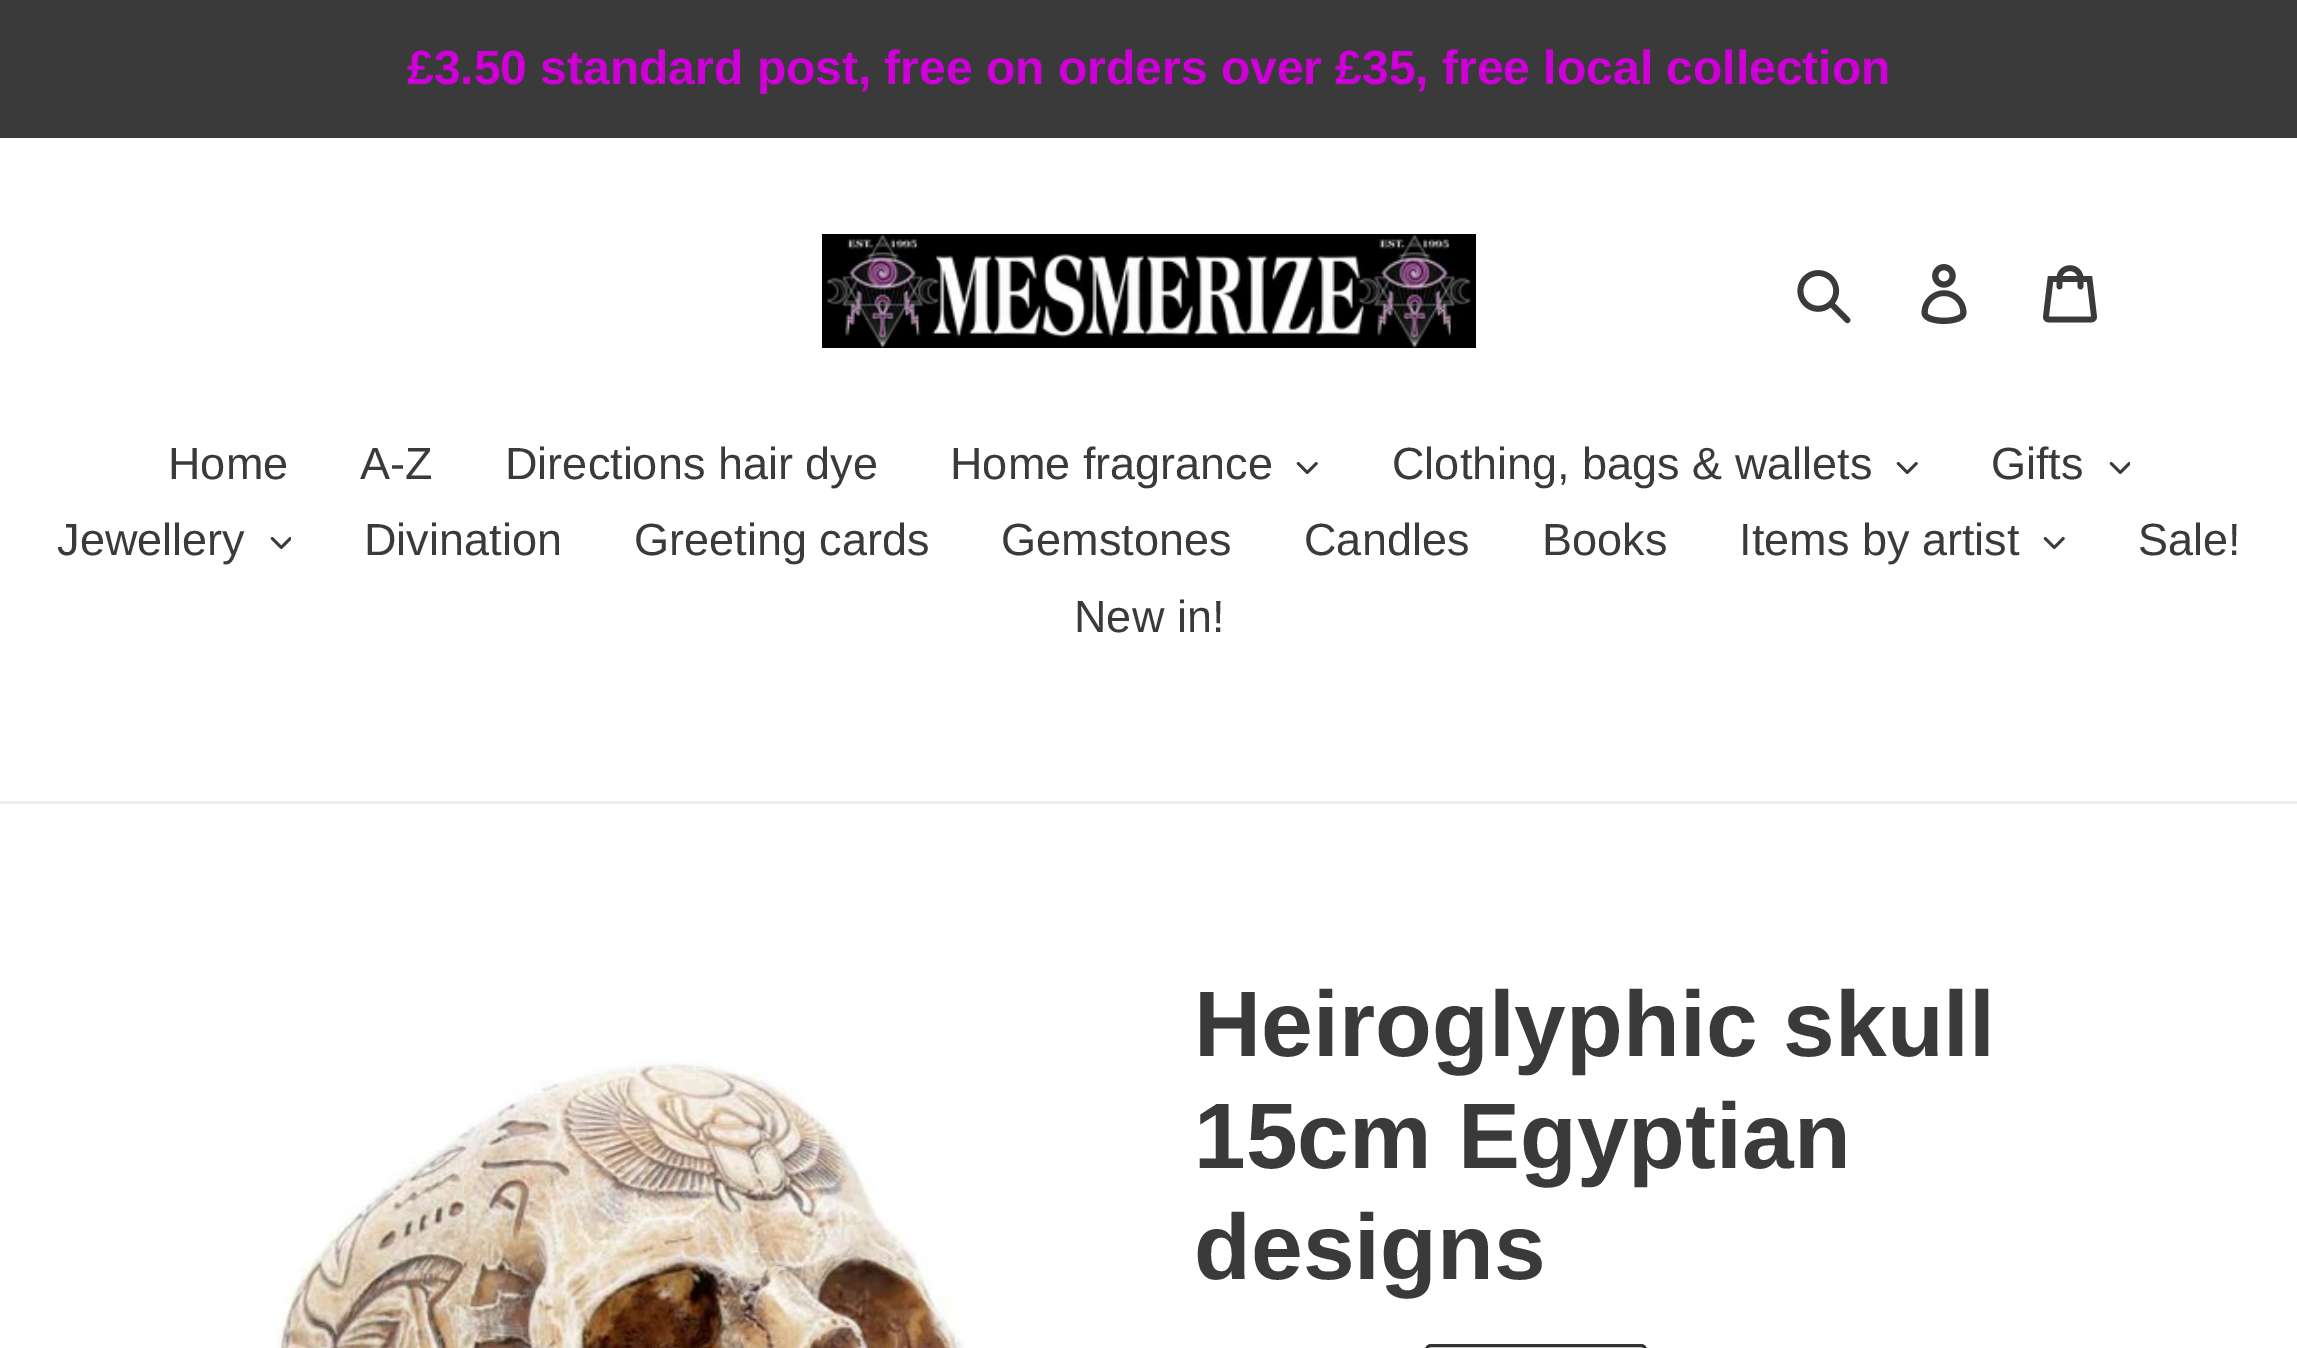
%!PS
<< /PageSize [2297 1348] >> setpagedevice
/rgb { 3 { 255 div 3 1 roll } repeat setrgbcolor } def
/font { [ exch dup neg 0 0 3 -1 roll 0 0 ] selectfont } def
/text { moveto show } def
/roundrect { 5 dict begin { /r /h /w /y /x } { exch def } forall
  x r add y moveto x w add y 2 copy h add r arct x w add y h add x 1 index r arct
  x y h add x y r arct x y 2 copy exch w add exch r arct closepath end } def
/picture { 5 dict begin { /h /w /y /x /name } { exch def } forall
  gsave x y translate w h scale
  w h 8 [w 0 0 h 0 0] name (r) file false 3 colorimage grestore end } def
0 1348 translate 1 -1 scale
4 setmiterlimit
255 255 255 rgb
0 0 2297 1348 rectfill
58 58 58 rgb
0 0 2297 138 rectfill
(img_01.rgb) 822 234 654 114 picture
(img_02.rgb) 1797 270 54 54 picture
(img_03.rgb) 1921 264 46 60 picture
(img_04.rgb) 2043 265 54 58 picture
235 235 235 rgb
0 801 2297 3 rectfill
(img_05.rgb) 1296 462 22 12 picture
(img_05.rgb) 1896 462 22 12 picture
(img_06.rgb) 2109 462 21 12 picture
(img_06.rgb) 270 537 21 12 picture
(img_05.rgb) 2043 537 22 12 picture
(img_07.rgb) 276 1060 689 288 picture
51 50 50 rgb
3 setlinewidth
1426.5 1345.5 219 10 4.5 roundrect stroke
/LiberationSans-Bold 48 font
206 0 215 rgb
(£3.50 standard post, free on orders over £35, free local collection) 407 84 text
/LiberationSans-Regular 45 font
58 58 58 rgb
(Home) 168 479 text
(A-Z) 360 479 text
(Directions hair dye) 505 479 text
(Home fragrance) 950 479 text
(Clothing, bags & wallets) 1392 479 text
(Gifts) 1991 479 text
(Jewellery) 57 555 text
(Divination) 364 555 text
(Greeting cards) 634 555 text
(Gemstones) 1001 555 text
(Candles) 1304 555 text
(Books) 1542 555 text
(Items by artist) 1739 555 text
(Sale!) 2138 555 text
(New in!) 1074 632 text
/LiberationSans-Bold 93 font
(Heiroglyphic skull) 1194 1056 text
(15cm Egyptian) 1194 1168 text
(designs) 1194 1279 text
showpage
